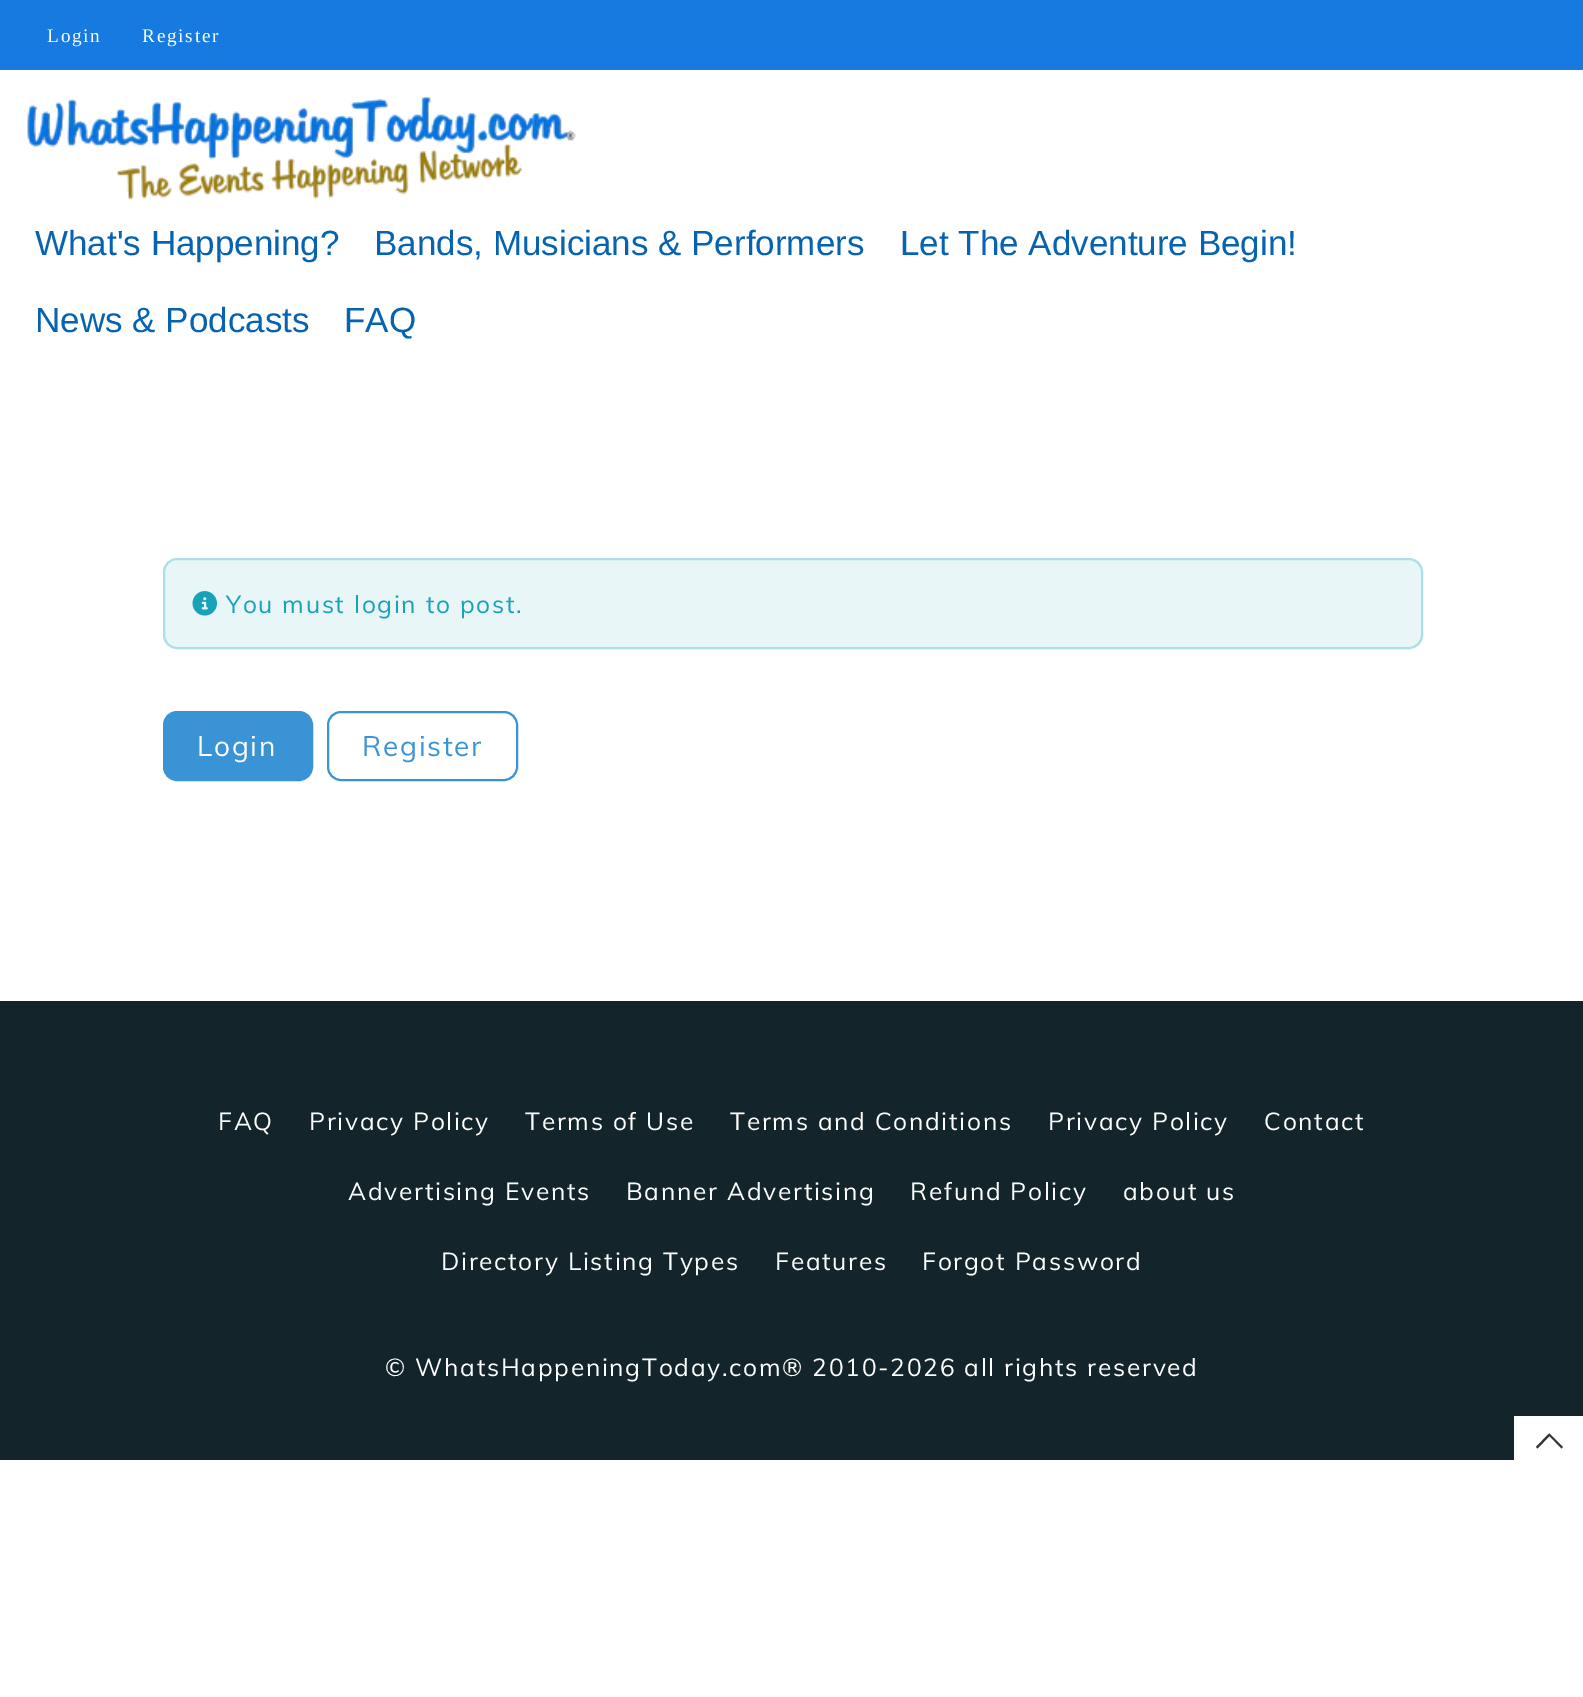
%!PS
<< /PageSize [1583 1697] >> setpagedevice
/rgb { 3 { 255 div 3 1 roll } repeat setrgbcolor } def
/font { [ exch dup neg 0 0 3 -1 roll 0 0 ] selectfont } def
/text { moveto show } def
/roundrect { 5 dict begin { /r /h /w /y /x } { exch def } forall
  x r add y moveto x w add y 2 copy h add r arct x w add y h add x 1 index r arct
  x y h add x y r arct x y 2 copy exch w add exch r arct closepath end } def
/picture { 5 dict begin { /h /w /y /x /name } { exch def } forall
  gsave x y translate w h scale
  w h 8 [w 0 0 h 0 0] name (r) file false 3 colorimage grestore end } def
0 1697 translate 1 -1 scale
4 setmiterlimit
255 255 255 rgb
0 0 1583 1697 rectfill
22 122 225 rgb
0 0 1583 70 rectfill
(img_01.rgb) 27 97 549 103 picture
232 246 248 rgb
164 559 1258 89 13 roundrect gsave fill grestore
174 222 230 rgb
2 setlinewidth
stroke
(img_02.rgb) 192 591 25 25 picture
57 147 213 rgb
164 712 148 68 13 roundrect gsave fill grestore
stroke
328 712 189 68 13 roundrect stroke
19 37 42 rgb
0 1001 1583 459 rectfill
255 255 255 rgb
1514 1416 69 44 rectfill
51 51 51 rgb
1549.5 1433.5 moveto 13.5 13.5 rlineto -1.5 1.5 rlineto -12 -12.5 rlineto -12 12.5 rlineto -1.5 -1.5 rlineto 12.5 -13 rlineto closepath fill
/LiberationSerif-Regular 19.25 font
255 255 255 rgb
47 42 moveto 1.75 0 (Login) ashow
142 42 moveto 1.75 0 (Register) ashow
/LiberationSans-Regular 35 font
6 99 178 rgb
(What's Happening?) 35 255 text
(Bands, Musicians & Performers) 374 255 text
(Let The Adventure Begin!) 900 255 text
(News & Podcasts) 35 332 text
(FAQ) 344 332 text
/Muli-Regular 24.5 font
23 162 184 rgb
226 613 moveto 1.75 0 (You must login to post.) ashow
/Muli-Regular 28 font
255 255 255 rgb
197 756 moveto 1.75 0 (Login) ashow
57 147 213 rgb
362 756 moveto 1.75 0 (Register) ashow
/Muli-Regular 24.5 font
255 255 255 rgb
218 1130 moveto 1.75 0 (FAQ) ashow
309 1130 moveto 1.75 0 (Privacy Policy) ashow
525 1130 moveto 1.75 0 (Terms of Use) ashow
730 1130 moveto 1.75 0 (Terms and Conditions) ashow
1048 1130 moveto 1.75 0 (Privacy Policy) ashow
1264 1130 moveto 1.75 0 (Contact) ashow
348 1200 moveto 1.75 0 (Advertising Events) ashow
626 1200 moveto 1.75 0 (Banner Advertising) ashow
910 1200 moveto 1.75 0 (Refund Policy) ashow
1123 1200 moveto 1.75 0 (about us) ashow
441 1270 moveto 1.75 0 (Directory Listing Types) ashow
775 1270 moveto 1.75 0 (Features) ashow
922 1270 moveto 1.75 0 (Forgot Password) ashow
385 1376 moveto 1.75 0 (© WhatsHappeningToday.com® 2010-2026 all rights reserved) ashow
showpage
